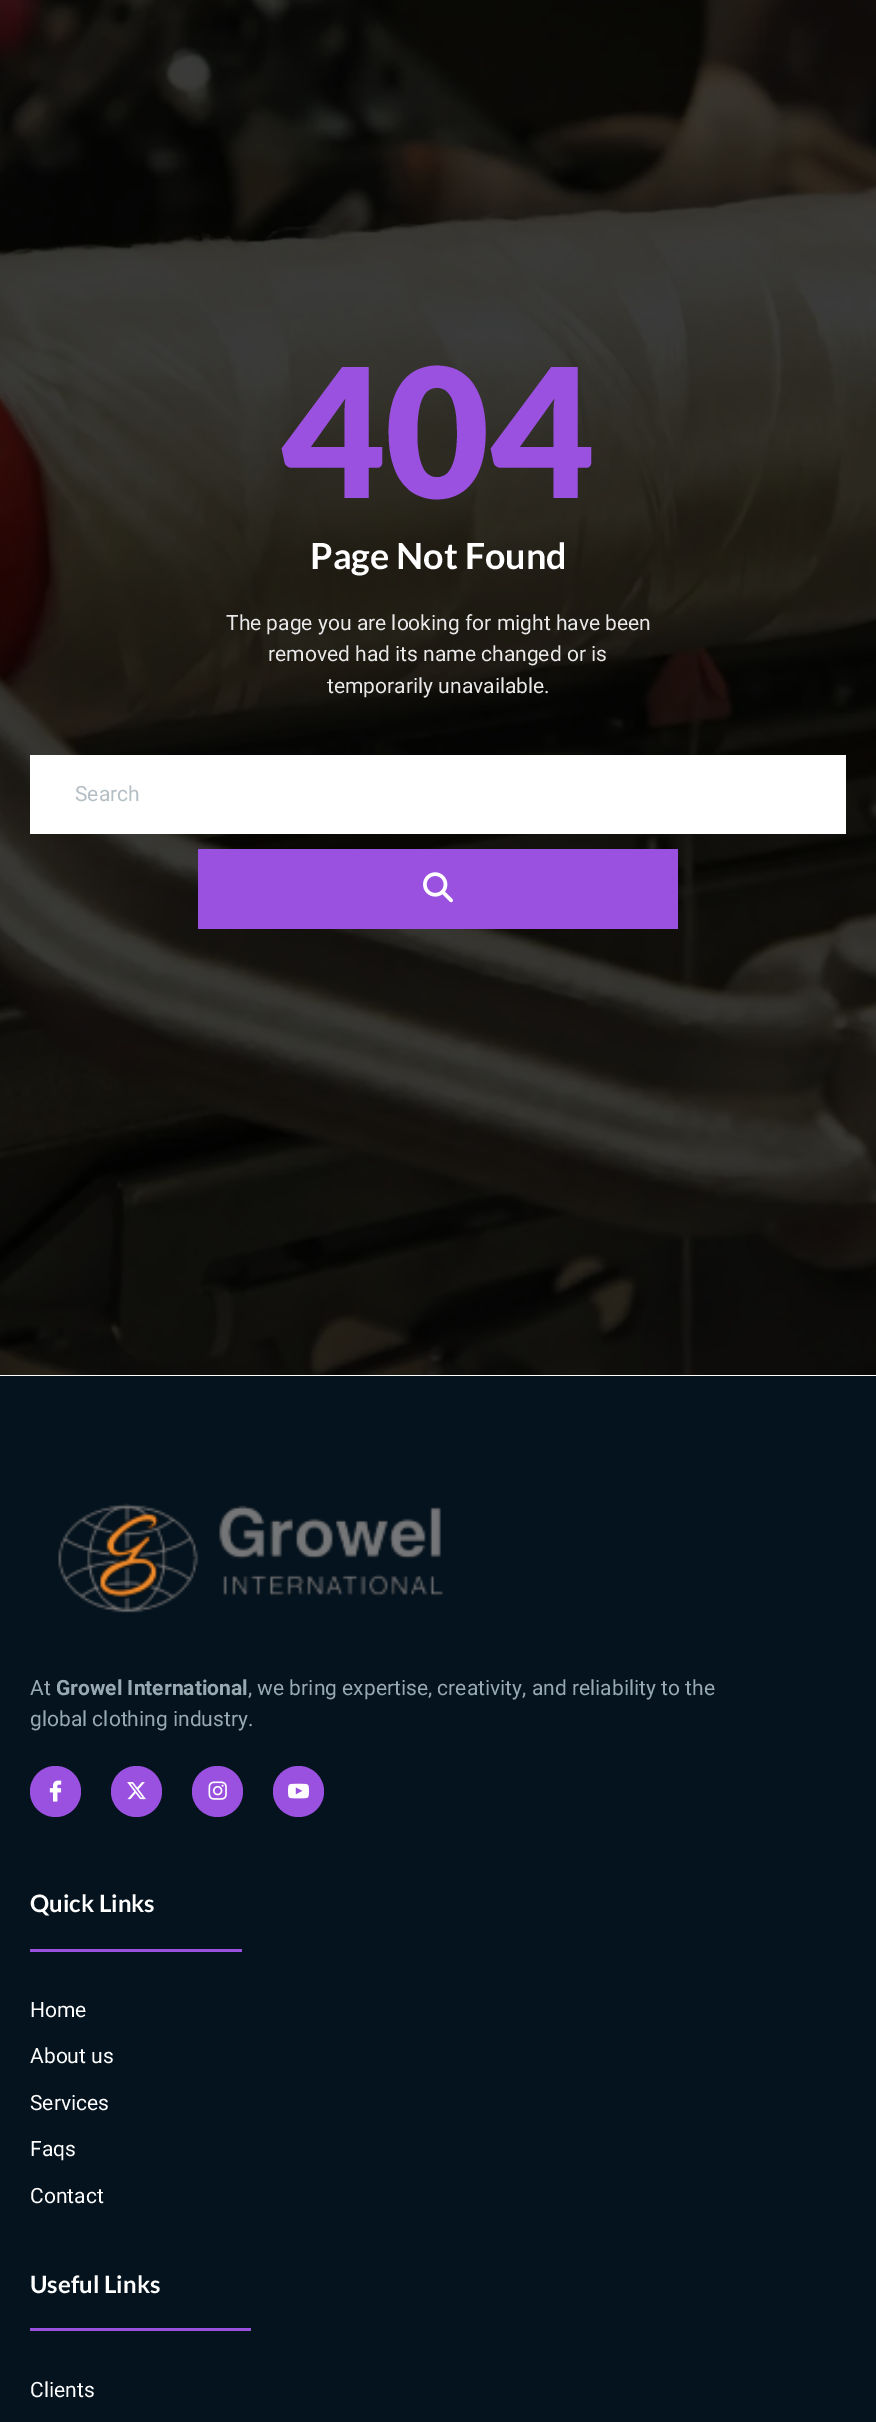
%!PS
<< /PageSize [876 2422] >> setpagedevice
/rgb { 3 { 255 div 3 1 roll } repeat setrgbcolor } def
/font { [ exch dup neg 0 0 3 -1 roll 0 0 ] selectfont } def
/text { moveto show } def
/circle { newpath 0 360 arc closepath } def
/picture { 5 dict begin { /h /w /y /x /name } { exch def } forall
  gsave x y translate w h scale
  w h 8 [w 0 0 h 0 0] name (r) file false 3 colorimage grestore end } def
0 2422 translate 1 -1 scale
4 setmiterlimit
255 255 255 rgb
0 0 876 2422 rectfill
(img_01.rgb) 0 0 876 1375 picture
30 755 816 79 rectfill
155 81 224 rgb
198 849 480 80 rectfill
(img_02.rgb) 423 872 30 31 picture
4 19 30 rgb
0 1376 876 1046 rectfill
(img_03.rgb) 58 1503 385 110 picture
155 81 224 rgb
55.5 1791.5 25.5 circle fill
(img_04.rgb) 49 1780 13 22 picture
136.5 1791.5 25.5 circle fill
(img_05.rgb) 127 1782 19 18 picture
217.5 1791.5 25.5 circle fill
(img_06.rgb) 208 1781 19 19 picture
298.5 1791.5 25.5 circle fill
(img_07.rgb) 288 1783 21 16 picture
30 1949 212 3 rectfill
30 2328 221 3 rectfill
/Lato-Black 180 font
(404) 281 498 text
/Lato-Bold 36 font
255 255 255 rgb
(Page Not Found) 310 569 text
/Heebo-Regular 21 font
233 233 233 rgb
(The page you are looking for might have been) 226 630 text
(removed had its name changed or is) 268 661 text
(temporarily unavailable.) 327 693 text
180 191 197 rgb
(Search) 75 801 text
153 169 178 rgb
(At) 30 1695 text
/Heebo-Bold 21 font
(Growel International) 56 1695 text
/Heebo-Regular 21 font
(, we bring expertise, creativity, and reliability to the) 248 1695 text
(global clothing industry.) 30 1726 text
/Lato-Bold 24 font
255 255 255 rgb
(Quick Links) 30 1912 text
/Heebo-Regular 21 font
(Home) 30 2017 text
(About us) 30 2063 text
(Services) 30 2110 text
(Faqs) 30 2156 text
(Contact) 30 2203 text
/Lato-Bold 24 font
(Useful Links) 30 2293 text
/Heebo-Regular 21 font
(Clients) 30 2397 text
showpage
